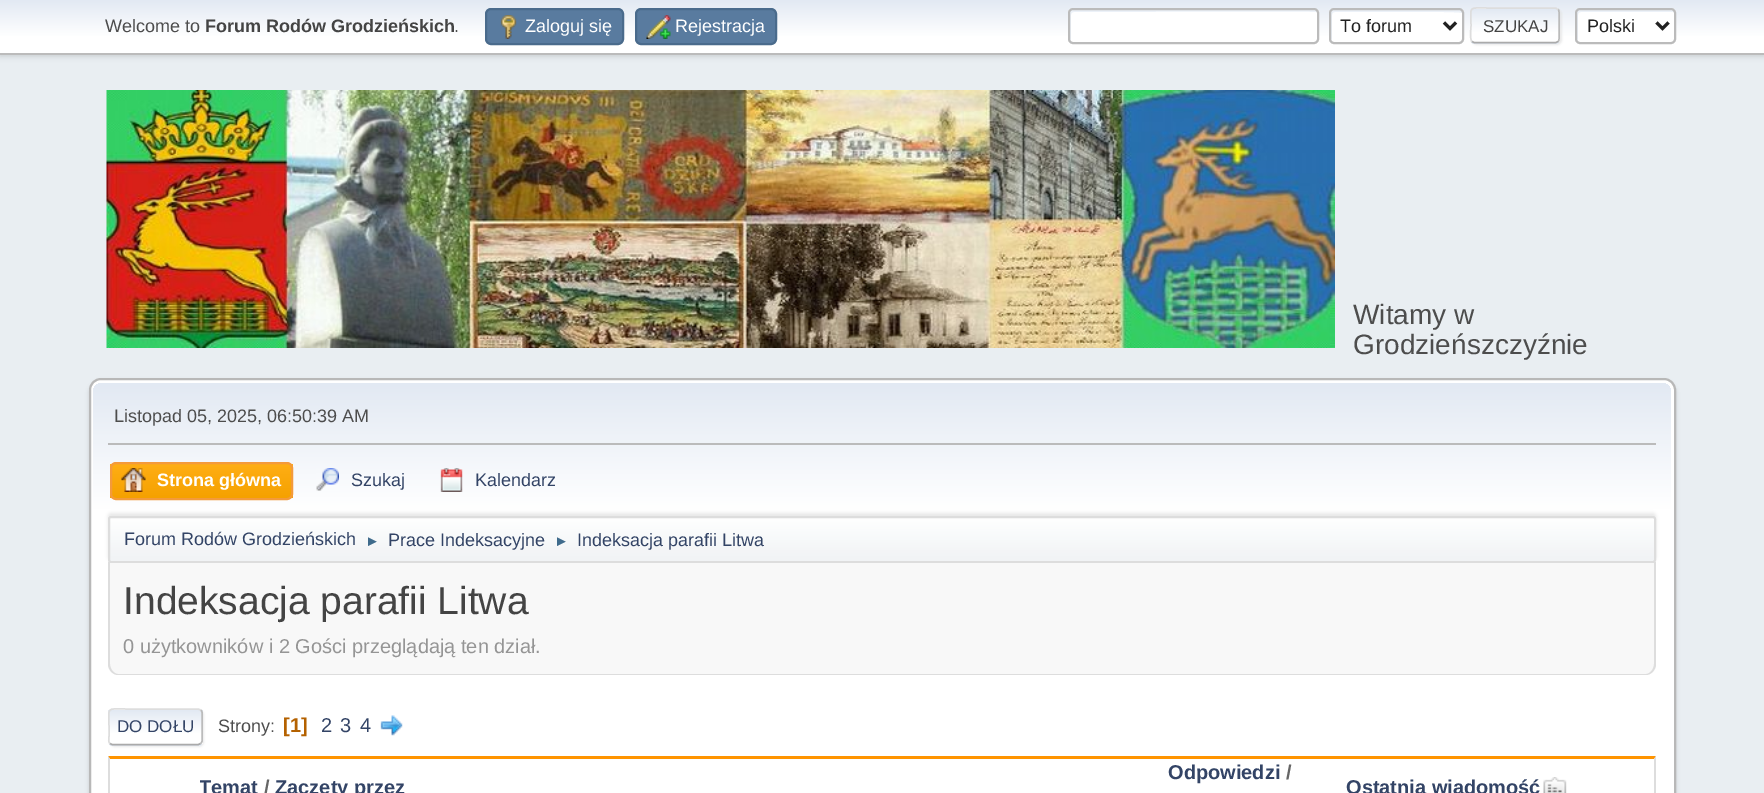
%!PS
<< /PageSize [1764 793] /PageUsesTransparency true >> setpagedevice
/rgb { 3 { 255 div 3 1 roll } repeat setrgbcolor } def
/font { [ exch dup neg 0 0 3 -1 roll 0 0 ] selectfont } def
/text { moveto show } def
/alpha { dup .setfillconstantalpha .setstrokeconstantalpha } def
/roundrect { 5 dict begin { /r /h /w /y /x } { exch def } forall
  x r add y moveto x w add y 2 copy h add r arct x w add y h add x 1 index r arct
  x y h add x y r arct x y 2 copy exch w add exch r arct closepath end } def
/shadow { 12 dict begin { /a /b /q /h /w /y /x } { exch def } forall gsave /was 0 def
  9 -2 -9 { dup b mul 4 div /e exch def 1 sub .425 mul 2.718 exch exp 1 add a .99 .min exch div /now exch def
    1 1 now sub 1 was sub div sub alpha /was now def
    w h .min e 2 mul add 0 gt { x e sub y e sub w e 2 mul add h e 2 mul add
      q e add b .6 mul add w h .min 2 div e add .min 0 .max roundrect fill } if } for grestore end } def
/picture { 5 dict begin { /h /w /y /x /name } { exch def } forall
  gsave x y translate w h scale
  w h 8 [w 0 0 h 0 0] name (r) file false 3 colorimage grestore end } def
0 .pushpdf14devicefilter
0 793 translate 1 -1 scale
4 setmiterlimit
233 238 242 rgb
0 0 1764 793 rectfill
0 0 0 rgb
0 2 1764 54 0 3 0.16 shadow
gsave 0 0 moveto 1764 0 rlineto 0 53 rlineto -1764 0 rlineto closepath clip newpath
<< /ShadingType 2 /ColorSpace /DeviceRGB /Coords [882 0 882 53] /Extend [true true] /Function << /FunctionType 3 /Domain [0 1] /Functions [<< /FunctionType 2 /Domain [0 1] /C0 [0.886 0.914 0.953] /C1 [1 1 1] /N 1 >> << /FunctionType 2 /Domain [0 1] /C0 [1 1 1] /C1 [1 1 1] /N 1 >>] /Bounds [0.7] /Encode [0 1 0 1] >> >> shfill grestore
187 187 187 rgb
0 53 1764 2 rectfill
89 123 159 rgb
486 9 137 35 5 roundrect gsave fill grestore
74 107 140 rgb
2 setlinewidth
stroke
(img_01.rgb) 500 15 17 24 picture
89 123 159 rgb
636 9 140 35 5 roundrect gsave fill grestore
74 107 140 rgb
stroke
(img_02.rgb) 646 15 25 24 picture
255 255 255 rgb
1068 8 251 36 5 roundrect fill
236 241 248 rgb
1074 12 moveto 22 0 242 -1 243 0 rcurveto 0 -2 -1 -3 -3 -3 rcurveto -241 0 rlineto -2 0 -3 1 -3 3 rcurveto 0 27 rlineto 0 1 0 2 1 2 rcurveto 0 -26 rlineto 0 -2 1 -3 3 -3 rcurveto closepath fill
187 187 187 rgb
1069 9 249 34 4 roundrect stroke
255 255 255 rgb
1329 8 135 36 5 roundrect fill
236 241 248 rgb
1335 12 moveto 13 0 126 -1 128 1 rcurveto 0 -2 -1 -4 -2 -4 rcurveto -106 0 rlineto -27 0 -24 -5 -24 17 rcurveto 0 2 -1 13 1 15 rcurveto 0 -26 rlineto 0 -2 1 -3 3 -3 rcurveto closepath fill
187 187 187 rgb
1330 9 133 34 4 roundrect stroke
34 34 34 rgb
3 setlinewidth
1444 22.5 moveto 6 6 rlineto 6 -6 rlineto stroke
221 221 221 rgb
1472 9 90 36 5 1 0.57 shadow
gsave
1470 8 90 36 5 roundrect clip newpath
gsave 1470 8 moveto 90 0 rlineto 0 1 rlineto -90 0 rlineto closepath clip newpath
<< /ShadingType 2 /ColorSpace /DeviceRGB /Coords [1515 -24 1515 9] /Extend [true true] /Function << /FunctionType 3 /Domain [0 1] /Functions [<< /FunctionType 2 /Domain [0 1] /C0 [0.886 0.914 0.953] /C1 [1 1 1] /N 1 >> << /FunctionType 2 /Domain [0 1] /C0 [1 1 1] /C1 [1 1 1] /N 1 >>] /Bounds [0.7] /Encode [0 1 0 1] >> >> shfill grestore
gsave 1470 9 moveto 90 0 rlineto 0 33 rlineto -90 0 rlineto closepath clip newpath
<< /ShadingType 2 /ColorSpace /DeviceRGB /Coords [1515 9 1515 42] /Extend [true true] /Function << /FunctionType 3 /Domain [0 1] /Functions [<< /FunctionType 2 /Domain [0 1] /C0 [0.886 0.914 0.953] /C1 [1 1 1] /N 1 >> << /FunctionType 2 /Domain [0 1] /C0 [1 1 1] /C1 [1 1 1] /N 1 >>] /Bounds [0.7] /Encode [0 1 0 1] >> >> shfill grestore
gsave 1470 42 moveto 90 0 rlineto 0 2 rlineto -90 0 rlineto closepath clip newpath
<< /ShadingType 2 /ColorSpace /DeviceRGB /Coords [1515 42 1515 75] /Extend [true true] /Function << /FunctionType 3 /Domain [0 1] /Functions [<< /FunctionType 2 /Domain [0 1] /C0 [0.886 0.914 0.953] /C1 [1 1 1] /N 1 >> << /FunctionType 2 /Domain [0 1] /C0 [1 1 1] /C1 [1 1 1] /N 1 >>] /Bounds [0.7] /Encode [0 1 0 1] >> >> shfill grestore
grestore
187 187 187 rgb
1.5 setlinewidth
1558 9.5 moveto 1 0.5 1 1.5 1 2.5 rcurveto 0 27 rlineto 0 1 0 2 -1 2.5 rcurveto stroke
170 170 170 rgb
1558 41.5 moveto -2 1 rlineto -82 0 rlineto -2 -1 rlineto stroke
221 221 221 rgb
1472 41.5 moveto -2.5 -2 -1 -13 -1 -16 rcurveto 0 -20 -3.5 -17.5 17 -17.5 rcurveto 67.5 0 rlineto 2.5 1.5 rlineto stroke
255 255 255 rgb
1575 8 101 36 5 roundrect fill
236 241 248 rgb
1581 12 moveto 93 0 rlineto 0 -6 -11 -3 -18 -3 rcurveto -61 0 rlineto -21 0 -18 -3 -18 17 rcurveto 0 2 -1 13 1 15 rcurveto 0 -26 rlineto 0 -2 1 -3 3 -3 rcurveto closepath fill
187 187 187 rgb
2 setlinewidth
1576 9 99 34 4 roundrect stroke
34 34 34 rgb
3 setlinewidth
1656.5 22.5 moveto 6 6 rlineto 6 -6 rlineto stroke
(img_03.rgb) 106 90 1229 258 picture
0 0 0 rgb
89 381 1587 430 12 2 0.14 shadow
255 255 255 rgb
90 379 1585 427 11 roundrect gsave fill grestore
184 184 184 rgb
2 setlinewidth
stroke
gsave 102 383 moveto 1560 0 rlineto 5 0 9 4 9 9 rcurveto 0 174 rlineto -1578 0 rlineto 0 -174 rlineto 0 -5 4 -9 9 -9 rcurveto closepath clip newpath
<< /ShadingType 2 /ColorSpace /DeviceRGB /Coords [882 382 882 566] /Extend [true true] /Function << /FunctionType 3 /Domain [0 1] /Functions [<< /FunctionType 2 /Domain [0 1] /C0 [0.886 0.914 0.953] /C1 [1 1 1] /N 1 >> << /FunctionType 2 /Domain [0 1] /C0 [1 1 1] /C1 [1 1 1] /N 1 >>] /Bounds [0.7] /Encode [0 1 0 1] >> >> shfill grestore
187 187 187 rgb
108 443 1548 2 rectfill
gsave
110 462 183 38 6 roundrect clip newpath
gsave 110 464 moveto 183 0 rlineto 0 34 rlineto -183 0 rlineto closepath clip newpath
<< /ShadingType 2 /ColorSpace /DeviceRGB /Coords [201 464 201 498] /Extend [true true] /Function << /FunctionType 2 /Domain [0 1] /C0 [1 0.682 0.078] /C1 [0.961 0.631 0] /N 1 >> >> shfill grestore
grestore
244 154 58 rgb
111 463 181 36 5 roundrect stroke
(img_04.rgb) 121 468 25 24 picture
(img_05.rgb) 316 468 23 23 picture
(img_06.rgb) 440 468 23 24 picture
0 0 0 rgb
108 513 1548 47 3 1.5 0.08 shadow
gsave
108 516 1548 47 3 roundrect clip newpath
gsave 108 518 moveto 1548 0 rlineto 0 43 rlineto -1548 0 rlineto closepath clip newpath
<< /ShadingType 2 /ColorSpace /DeviceRGB /Coords [882 517 882 561] /Extend [true true] /Function << /FunctionType 3 /Domain [0 1] /Functions [<< /FunctionType 2 /Domain [0 1] /C0 [1 1 1] /C1 [0.945 0.953 0.961] /N 1 >> << /FunctionType 2 /Domain [0 1] /C0 [0.945 0.953 0.961] /C1 [0.945 0.953 0.961] /N 1 >>] /Bounds [0.95] /Encode [0 1 0 1] >> >> shfill grestore
grestore
221 221 221 rgb
109 517 1546 45 2 roundrect stroke
248 248 248 rgb
108 563 moveto 1548 0 rlineto 0 101 rlineto 0 6 -5 11 -11 11 rcurveto -1526 0 rlineto -6 0 -11 -5 -11 -11 rcurveto closepath fill
221 221 221 rgb
108 562 moveto 1548 0 rlineto 0 102 rlineto 0 6 -5 11 -10 11 rcurveto -1528 0 rlineto -5 0 -10 -5 -10 -11 rcurveto closepath 110 562 moveto 1544 0 rlineto 0 102 rlineto 0 5 -4 10 -8 10 rcurveto -1528 0 rlineto -4 0 -8 -5 -8 -10 rcurveto closepath eofill
110 710 94 37 5 1 0.57 shadow
255 255 255 rgb
108 708 95 38 5 roundrect fill
gsave
108 708 95 38 5 roundrect clip newpath
gsave 108 710 moveto 95 0 rlineto 0 34 rlineto -95 0 rlineto closepath clip newpath
<< /ShadingType 2 /ColorSpace /DeviceRGB /Coords [155 710 155 744] /Extend [true true] /Function << /FunctionType 3 /Domain [0 1] /Functions [<< /FunctionType 2 /Domain [0 1] /C0 [0.886 0.914 0.953] /C1 [1 1 1] /N 1 >> << /FunctionType 2 /Domain [0 1] /C0 [1 1 1] /C1 [1 1 1] /N 1 >>] /Bounds [0.7] /Encode [0 1 0 1] >> >> shfill grestore
gsave 108 744 moveto 95 0 rlineto 0 2 rlineto -95 0 rlineto closepath clip newpath
<< /ShadingType 2 /ColorSpace /DeviceRGB /Coords [155 744 155 779] /Extend [true true] /Function << /FunctionType 3 /Domain [0 1] /Functions [<< /FunctionType 2 /Domain [0 1] /C0 [0.886 0.914 0.953] /C1 [1 1 1] /N 1 >> << /FunctionType 2 /Domain [0 1] /C0 [1 1 1] /C1 [1 1 1] /N 1 >>] /Bounds [0.7] /Encode [0 1 0 1] >> >> shfill grestore
grestore
187 187 187 rgb
1.5 setlinewidth
200.5 710 moveto 1 0.5 1.5 1.5 1.5 2.5 rcurveto 0 28.5 rlineto 0 1 -0.5 2 -1.5 2.5 rcurveto stroke
170 170 170 rgb
200.5 743.5 moveto -2 1 rlineto -86.5 0 rlineto -2 -1 rlineto stroke
221 221 221 rgb
110 743.5 moveto -2 -1.5 -1 -5 -1 -7.5 rcurveto 0 -9 rlineto 0 -21 -3.5 -18 18 -18 rcurveto 71 0 rlineto 2.5 1 rlineto stroke
(img_07.rgb) 380 715 23 21 picture
255 148 0 rgb
108 756 moveto 1548 0 rlineto -2 3 rlineto -1544 0 rlineto closepath fill
221 221 221 rgb
1656 756 moveto 0 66 rlineto -2 -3 rlineto 0 -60 rlineto closepath fill
108 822 moveto 0 -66 rlineto 2 3 rlineto 0 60 rlineto closepath fill
(img_08.rgb) 1543 777 24 16 picture
/LiberationSans-Regular 18 font
77 77 77 rgb
(Welcome to) 105 32 text
/LiberationSans-Bold 18 font
68 68 68 rgb
(Forum Rodów Grodzieńskich) 205 32 text
/LiberationSans-Regular 18 font
77 77 77 rgb
(.) 454 32 text
255 255 255 rgb
(Zaloguj się) 525 32 text
(Rejestracja) 675 32 text
34 34 34 rgb
(To forum) 1340 32 text
/LiberationSans-Regular 17 font
68 68 68 rgb
(SZUKAJ) 1483 32 text
/LiberationSans-Regular 18 font
34 34 34 rgb
(Polski) 1587 32 text
/LiberationSans-Regular 28 font
77 77 77 rgb
(Witamy w) 1353 324 text
(Grodzieńszczyźnie) 1353 354 text
/LiberationSans-Regular 18 font
(Listopad 05, 2025, 06:50:39 AM) 114 422 text
/LiberationSans-Bold 18 font
255 255 255 rgb
(Strona główna) 157 486 text
/LiberationSans-Regular 18 font
51 68 102 rgb
(Szukaj) 351 486 text
(Kalendarz) 475 486 text
(Forum Rodów Grodzieńskich) 124 545 text
/LiberationSans-Regular 15 font
63 107 140 rgb
(►) 365 546 text
/LiberationSans-Regular 18 font
51 68 102 rgb
(Prace Indeksacyjne) 388 546 text
/LiberationSans-Regular 15 font
63 107 140 rgb
(►) 554 546 text
/LiberationSans-Regular 18 font
51 68 102 rgb
(Indeksacja parafii Litwa) 577 546 text
/LiberationSans-Regular 39 font
68 68 68 rgb
(Indeksacja parafii Litwa) 123 614 text
/LiberationSans-Regular 20 font
149 149 149 rgb
(0 użytkowników i 2 Gości przeglądają ten dział.) 123 653 text
/LiberationSans-Regular 17 font
51 68 102 rgb
(DO DOŁU) 117 732 text
/LiberationSans-Regular 18 font
77 77 77 rgb
(Strony:) 218 732 text
/LiberationSans-Bold 20 font
180 97 0 rgb
([1]) 283 732 text
/LiberationSans-Regular 20 font
51 68 102 rgb
(2) 321 732 text
(3) 340 732 text
(4) 360 732 text
/LiberationSans-Bold 20 font
(Odpowiedzi) 1168 779 text
102 102 102 rgb
(/) 1286 779 text
gsave
200 774 915 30 rectclip
51 68 102 rgb
(Temat) 199 794 text
grestore
(/) 264 794 text
51 68 102 rgb
(Zaczęty przez) 275 794 text
(Ostatnia wiadomość) 1346 794 text
.poppdf14devicefilter showpage
